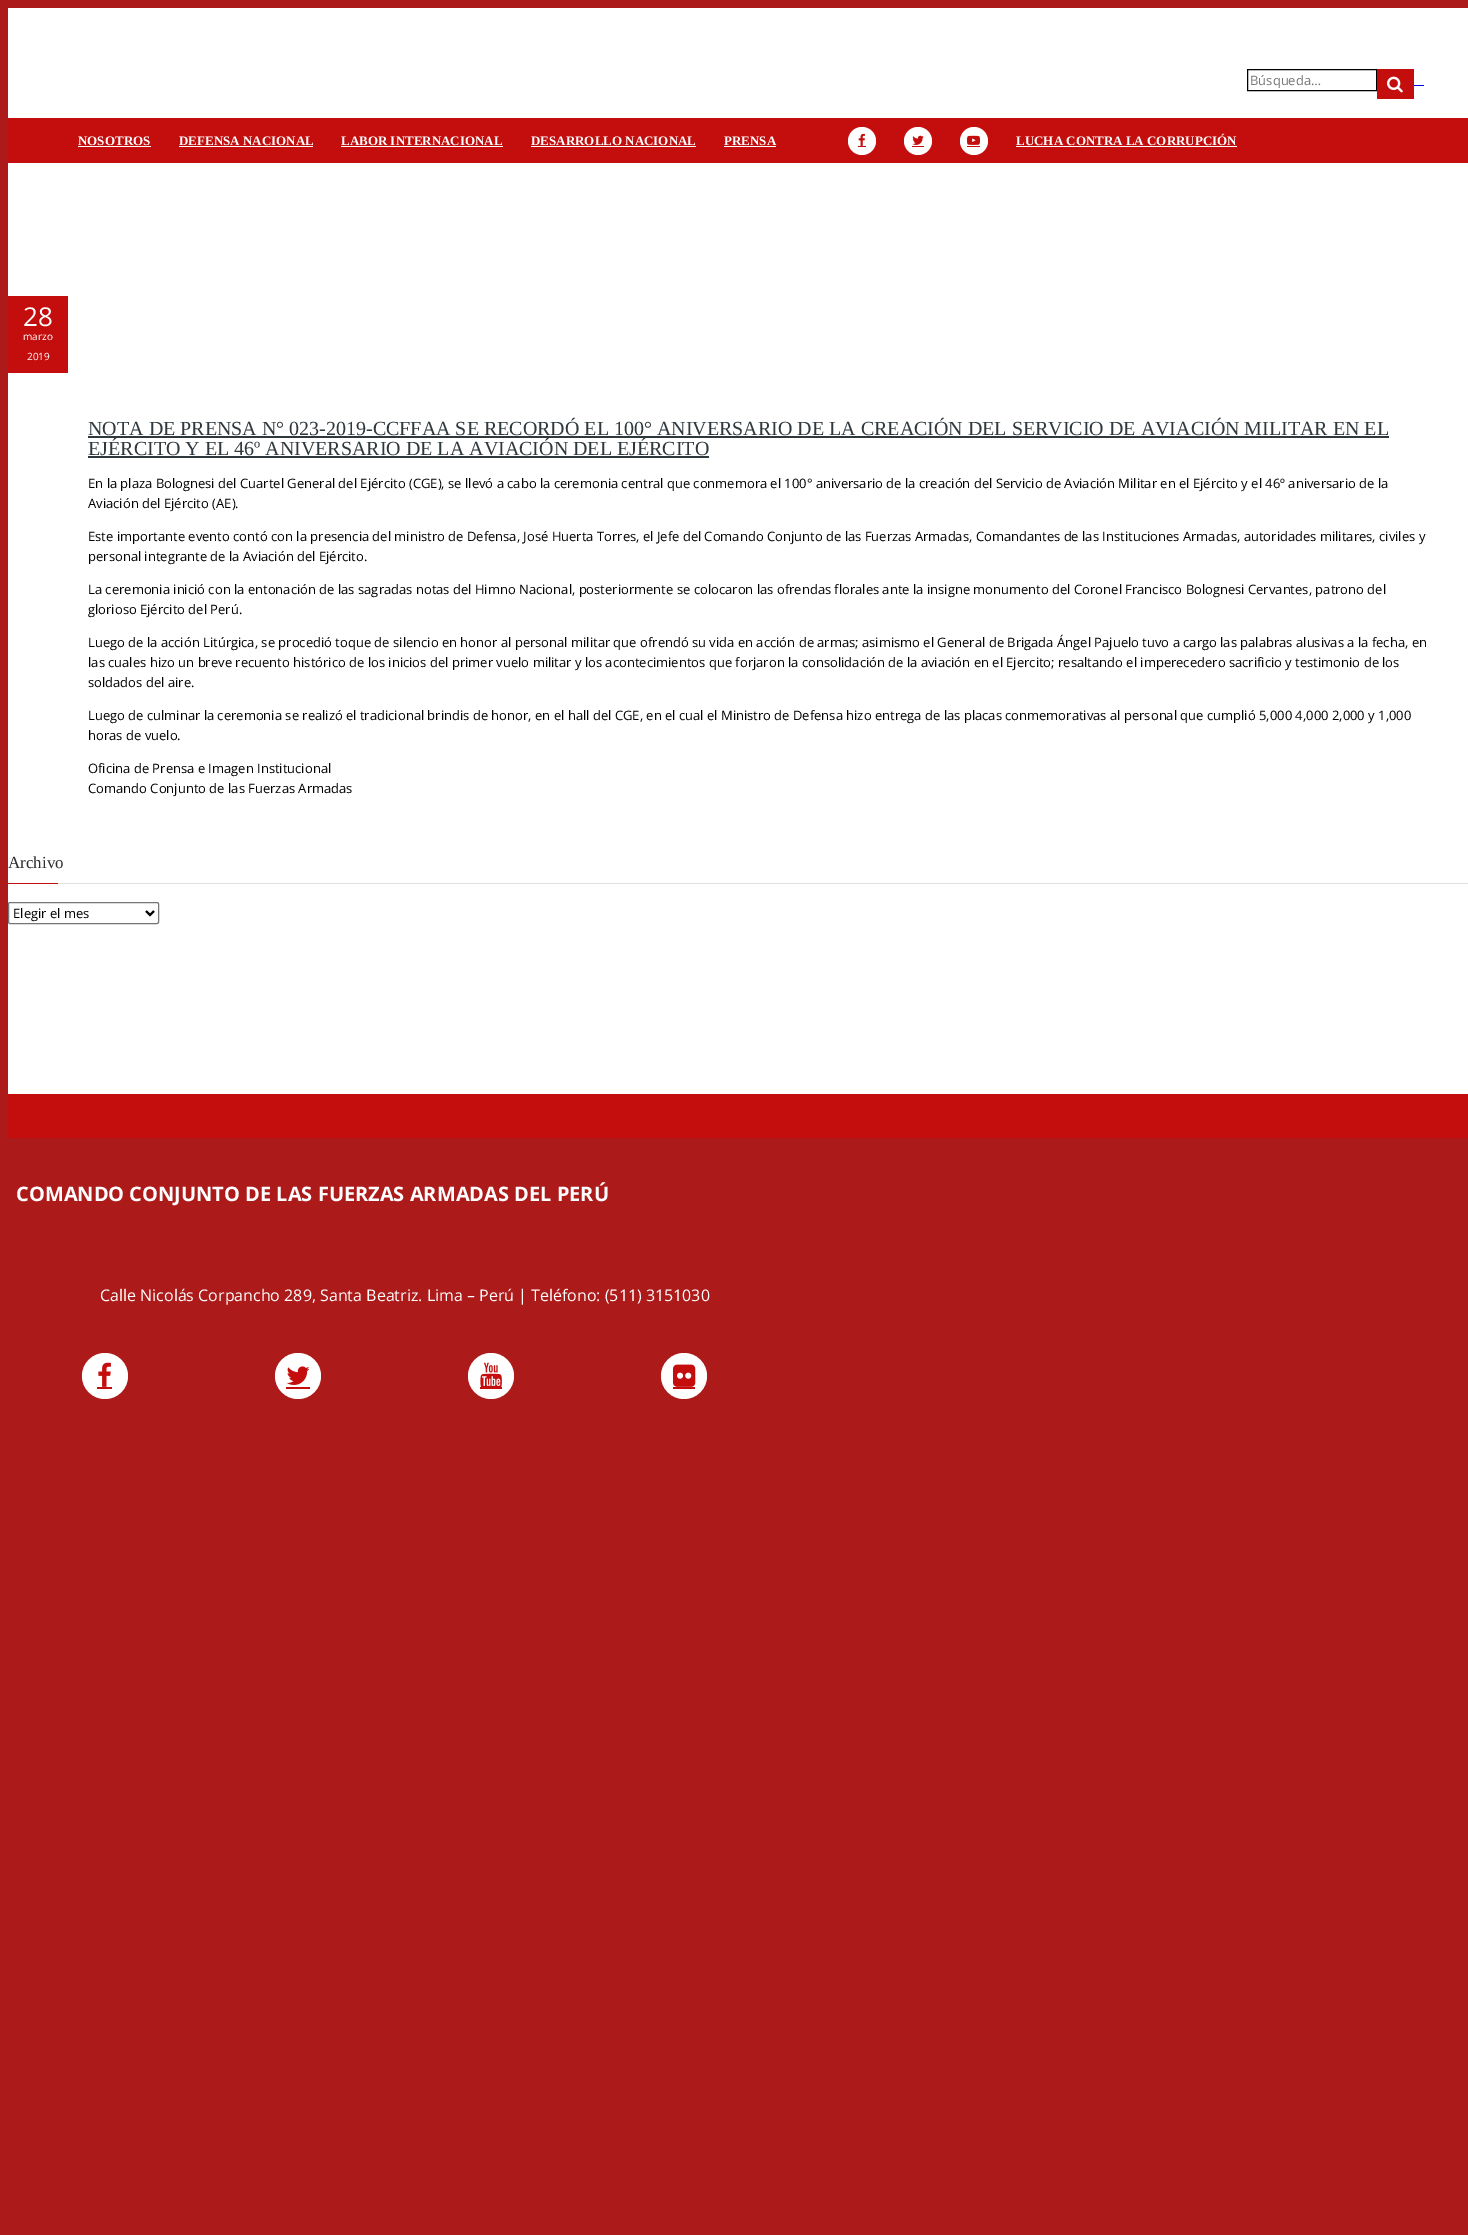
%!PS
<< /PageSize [1468 2235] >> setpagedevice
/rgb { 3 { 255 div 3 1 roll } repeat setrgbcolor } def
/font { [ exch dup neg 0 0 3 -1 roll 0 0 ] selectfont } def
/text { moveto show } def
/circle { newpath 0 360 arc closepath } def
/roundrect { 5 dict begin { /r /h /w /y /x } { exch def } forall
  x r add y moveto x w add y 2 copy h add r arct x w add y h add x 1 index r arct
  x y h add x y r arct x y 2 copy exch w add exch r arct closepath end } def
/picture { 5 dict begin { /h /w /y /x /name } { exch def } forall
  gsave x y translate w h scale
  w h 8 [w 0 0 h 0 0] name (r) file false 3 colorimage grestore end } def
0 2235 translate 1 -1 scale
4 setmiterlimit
173 26 26 rgb
0 0 1468 2235 rectfill
255 255 255 rgb
8 8 1460 110 rectfill
0 0 0 rgb
1247.5 69.5 129 21 rectstroke
196 13 13 rgb
1377 69 37 30 rectfill
(img_01.rgb) 1387 76 16 17 picture
0 0 238 rgb
1414 85 10 1 rectfill
196 13 13 rgb
8 118 1460 45 rectfill
255 255 255 rgb
78 146 73 1 rectfill
179 146 134 1 rectfill
341 146 162 1 rectfill
531 146 165 1 rectfill
724 146 52 1 rectfill
862 141 14 circle fill
196 13 13 rgb
858 146 8 1 rectfill
(img_02.rgb) 858 133 7 13 picture
255 255 255 rgb
918 141 14 circle fill
196 13 13 rgb
912 146 12 1 rectfill
(img_03.rgb) 912 135 12 10 picture
255 255 255 rgb
974 141 14 circle fill
196 13 13 rgb
967 146 13 1 rectfill
(img_04.rgb) 967 135 13 10 picture
255 255 255 rgb
1016 146 221 1 rectfill
8 163 1460 931 rectfill
196 13 13 rgb
8 296 60 77 rectfill
47 56 61 rgb
88 436 1301 2 rectfill
88 456 621 2 rectfill
225 225 225 rgb
58 883 1410 1 rectfill
196 13 13 rgb
8 883 50 1 rectfill
118 118 118 rgb
8.5 902.5 150 21 1.5 roundrect stroke
0 0 0 rgb
2 setlinewidth
146 911 moveto 4 4 rlineto 4 -4 rlineto stroke
196 13 13 rgb
8 1094 1460 44 rectfill
255 255 255 rgb
105 1376 23 circle fill
196 13 13 rgb
97 1387 15 2 rectfill
(img_05.rgb) 98 1362 13 25 picture
255 255 255 rgb
298 1376 23 circle fill
196 13 13 rgb
286 1387 24 2 rectfill
(img_06.rgb) 286 1366 24 19 picture
255 255 255 rgb
491 1376 23 circle fill
196 13 13 rgb
480 1387 22 2 rectfill
(img_07.rgb) 480 1362 22 25 picture
255 255 255 rgb
684 1376 23 circle fill
196 13 13 rgb
673 1387 22 2 rectfill
(img_08.rgb) 673 1364 23 23 picture
/OpenSans-Regular 13 font
117 117 117 rgb
(Búsqueda…) 1250 85 text
/LiberationSerif-Bold 13 font
255 255 255 rgb
(NOSOTROS) 78 145 text
(DEFENSA NACIONAL) 179 145 text
(LABOR INTERNACIONAL) 341 145 text
(DESARROLLO NACIONAL) 531 145 text
(PRENSA) 724 145 text
(LUCHA CONTRA LA CORRUPCIÓN) 1016 145 text
/OpenSans-Regular 26 font
(28) 23 326 text
/OpenSans-Regular 10 font
(marzo) 23 340 text
(2019) 27 360 text
/LiberationSerif-Regular 20 font
47 56 61 rgb
(NOTA DE PRENSA N° 023-2019-CCFFAA SE RECORDÓ EL 100° ANIVERSARIO DE LA CREACIÓN DEL SERVICIO DE AVIACIÓN MILITAR EN EL) 88 435 text
(EJÉRCITO Y EL 46º ANIVERSARIO DE LA AVIACIÓN DEL EJÉRCITO) 88 455 text
/OpenSans-Regular 13 font
0 0 0 rgb
(En la plaza Bolognesi del Cuartel General del Ejército \(CGE\), se llevó a cabo la ceremonia central que conmemora el 100° aniversario de la creación del Servicio de Aviación Militar en el Ejército y el 46º aniversario de la) 88 488 text
(Aviación del Ejército \(AE\).) 88 508 text
(Este importante evento contó con la presencia del ministro de Defensa, José Huerta Torres, el Jefe del Comando Conjunto de las Fuerzas Armadas, Comandantes de las Instituciones Armadas, autoridades militares, civiles y) 88 541 text
(personal integrante de la Aviación del Ejército.) 88 561 text
(La ceremonia inició con la entonación de las sagradas notas del Himno Nacional, posteriormente se colocaron las ofrendas florales ante la insigne monumento del Coronel Francisco Bolognesi Cervantes, patrono del) 88 594 text
(glorioso Ejército del Perú.) 88 614 text
(Luego de la acción Litúrgica, se procedió toque de silencio en honor al personal militar que ofrendó su vida en acción de armas; asimismo el General de Brigada Ángel Pajuelo tuvo a cargo las palabras alusivas a la fecha, en) 88 647 text
(las cuales hizo un breve recuento histórico de los inicios del primer vuelo militar y los acontecimientos que forjaron la consolidación de la aviación en el Ejercito; resaltando el imperecedero sacrificio y testimonio de los) 88 667 text
(soldados del aire.) 88 687 text
(Luego de culminar la ceremonia se realizó el tradicional brindis de honor, en el hall del CGE, en el cual el Ministro de Defensa hizo entrega de las placas conmemorativas al personal que cumplió 5,000 4,000 2,000 y 1,000) 88 720 text
(horas de vuelo.) 88 740 text
(Oficina de Prensa e Imagen Institucional) 88 773 text
(Comando Conjunto de las Fuerzas Armadas) 88 793 text
/LiberationSerif-Regular 17 font
46 46 46 rgb
(Archivo) 8 868 text
/OpenSans-Regular 13 font
0 0 0 rgb
(Elegir el mes) 13 918 text
/OpenSans-Bold 20 font
255 255 255 rgb
(COMANDO CONJUNTO DE LAS FUERZAS ARMADAS DEL PERÚ) 16 1201 text
/OpenSans-Regular 16 font
(Calle Nicolás Corpancho 289, Santa Beatriz. Lima – Perú | Teléfono: \(511\) 3151030) 100 1301 text
showpage
